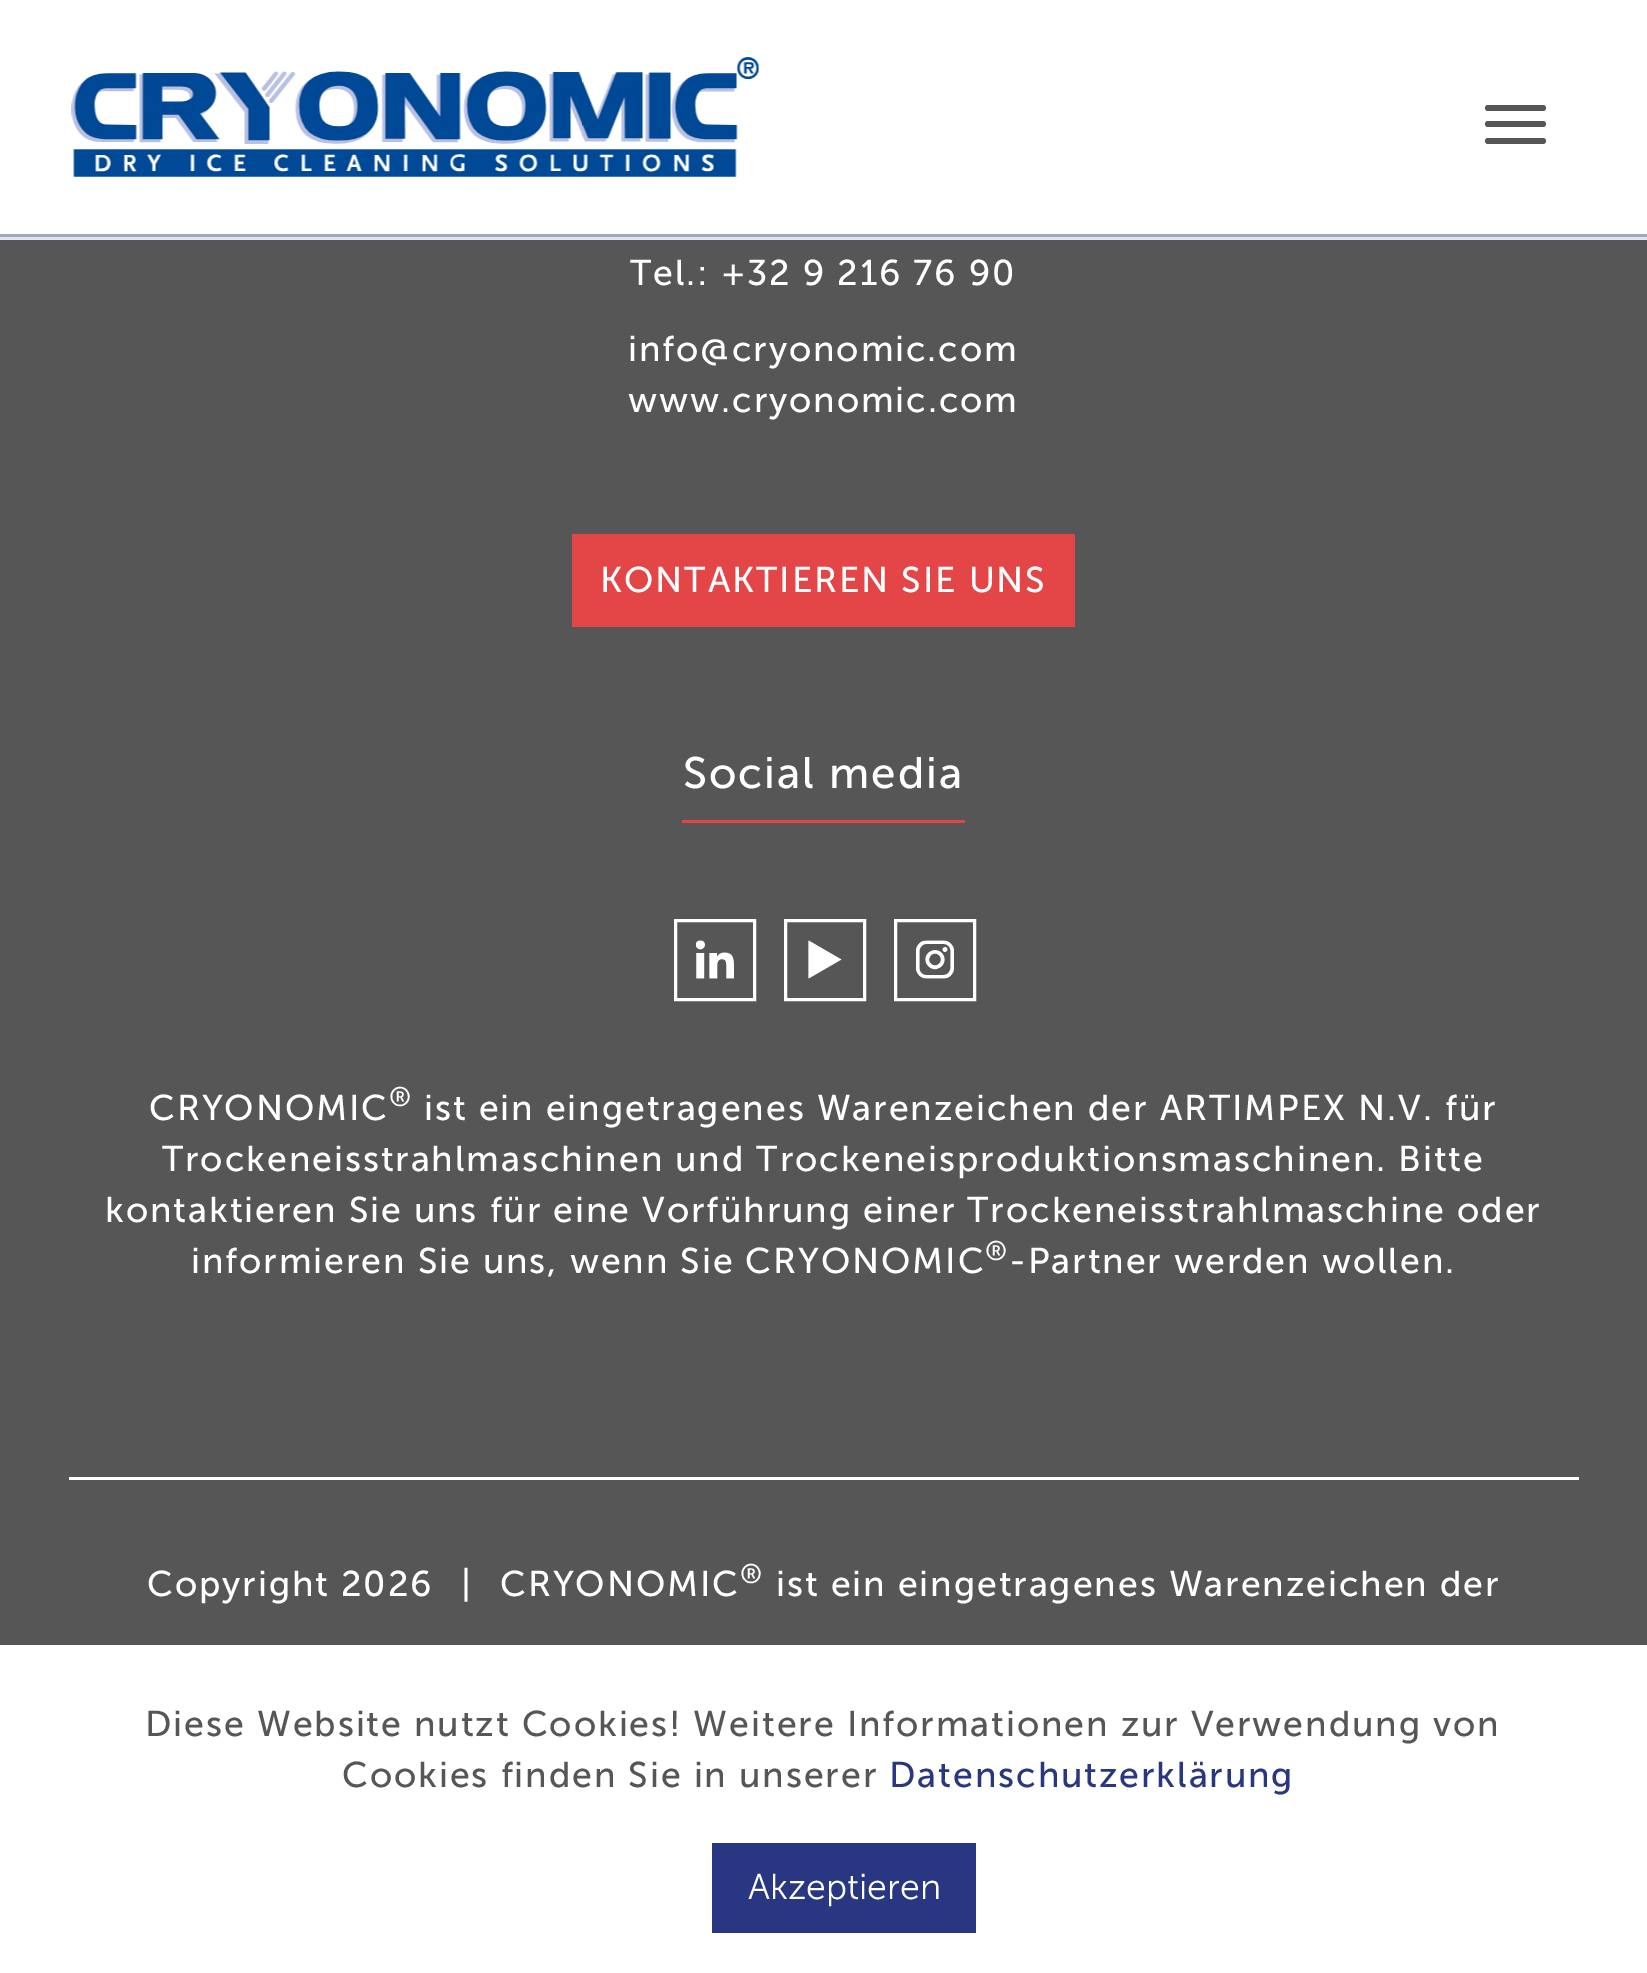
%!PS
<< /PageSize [1647 1973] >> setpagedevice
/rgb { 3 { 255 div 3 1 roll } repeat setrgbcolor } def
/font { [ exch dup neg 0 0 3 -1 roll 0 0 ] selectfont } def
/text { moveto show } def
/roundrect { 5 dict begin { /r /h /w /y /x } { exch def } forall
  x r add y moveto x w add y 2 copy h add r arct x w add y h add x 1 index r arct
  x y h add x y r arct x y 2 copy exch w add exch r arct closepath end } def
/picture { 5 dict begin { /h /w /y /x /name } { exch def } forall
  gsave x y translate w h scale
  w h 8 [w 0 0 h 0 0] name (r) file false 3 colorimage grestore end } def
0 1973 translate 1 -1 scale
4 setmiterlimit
86 86 86 rgb
0 0 1647 1973 rectfill
225 228 238 rgb
0 237 1647 3 rectfill
255 255 255 rgb
0 0 1647 234 rectfill
164 167 185 rgb
0 234 1647 3 rectfill
(img_01.rgb) 71 57 688 120 picture
86 86 86 rgb
1485 105 61 6 3 roundrect fill
1485 121 61 6 3 roundrect fill
1485 138 61 6 3 roundrect fill
228 70 71 rgb
572 534 503 93 rectfill
682 820 283 3 rectfill
255 255 255 rgb
3 setlinewidth
675.5 920.5 79 79 rectstroke
(img_02.rgb) 696 940 38 39 picture
785.5 920.5 79 79 rectstroke
(img_03.rgb) 808 940 34 39 picture
895.5 920.5 79 79 rectstroke
(img_04.rgb) 916 940 38 39 picture
69 1477 1510 3 rectfill
0 1645 1647 328 rectfill
41 55 130 rgb
712 1843 264 90 rectfill
/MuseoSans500-Regular 35.75 font
255 255 255 rgb
630 285 moveto 1.92 0 (Tel.: +32 9 216 76 90) ashow
628 361 moveto 1.92 0 (info@cryonomic.com) ashow
628 412 moveto 1.92 0 (www.cryonomic.com) ashow
600 592 moveto 1.92 0 (KONTAKTIEREN SIE UNS) ashow
/MuseoSans500-Regular 44 font
683 788 moveto 1.92 0 (Social media) ashow
/MuseoSans500-Regular 35.75 font
149 1120 moveto 1.92 0 (CRYONOMIC) ashow
/MuseoSans500-Regular 27 font
389 1106 moveto 1.92 0 (®) ashow
/MuseoSans500-Regular 35.75 font
424 1120 moveto 1.92 0 (ist ein eingetragenes Warenzeichen der ARTIMPEX N.V. für) ashow
162 1171 moveto 1.92 0 (Trockeneisstrahlmaschinen und Trockeneisproduktionsmaschinen. Bitte) ashow
105 1222 moveto 1.92 0 (kontaktieren Sie uns für eine Vorführung einer Trockeneisstrahlmaschine oder) ashow
191 1273 moveto 1.92 0 (informieren Sie uns, wenn Sie CRYONOMIC) ashow
/MuseoSans500-Regular 27 font
985 1260 moveto 1.92 0 (®) ashow
/MuseoSans500-Regular 35.75 font
1009 1273 moveto 1.92 0 (-Partner werden wollen.) ashow
147 1596 moveto 1.92 0 (Copyright 2026) ashow
461 1596 moveto 1.92 0 (|) ashow
500 1596 moveto 1.92 0 (CRYONOMIC) ashow
/MuseoSans500-Regular 27 font
740 1583 moveto 1.92 0 (®) ashow
/MuseoSans500-Regular 35.75 font
776 1596 moveto 1.92 0 (ist ein eingetragenes Warenzeichen der) ashow
86 86 86 rgb
145 1736 moveto 1.92 0 (Diese Website nutzt Cookies! Weitere Informationen zur Verwendung von) ashow
342 1787 moveto 1.92 0 (Cookies finden Sie in unserer) ashow
41 55 130 rgb
889 1787 moveto 1.92 0 (Datenschutzerklärung) ashow
/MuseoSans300-Light 35.75 font
255 255 255 rgb
(Akzeptieren) 748 1899 text
showpage
